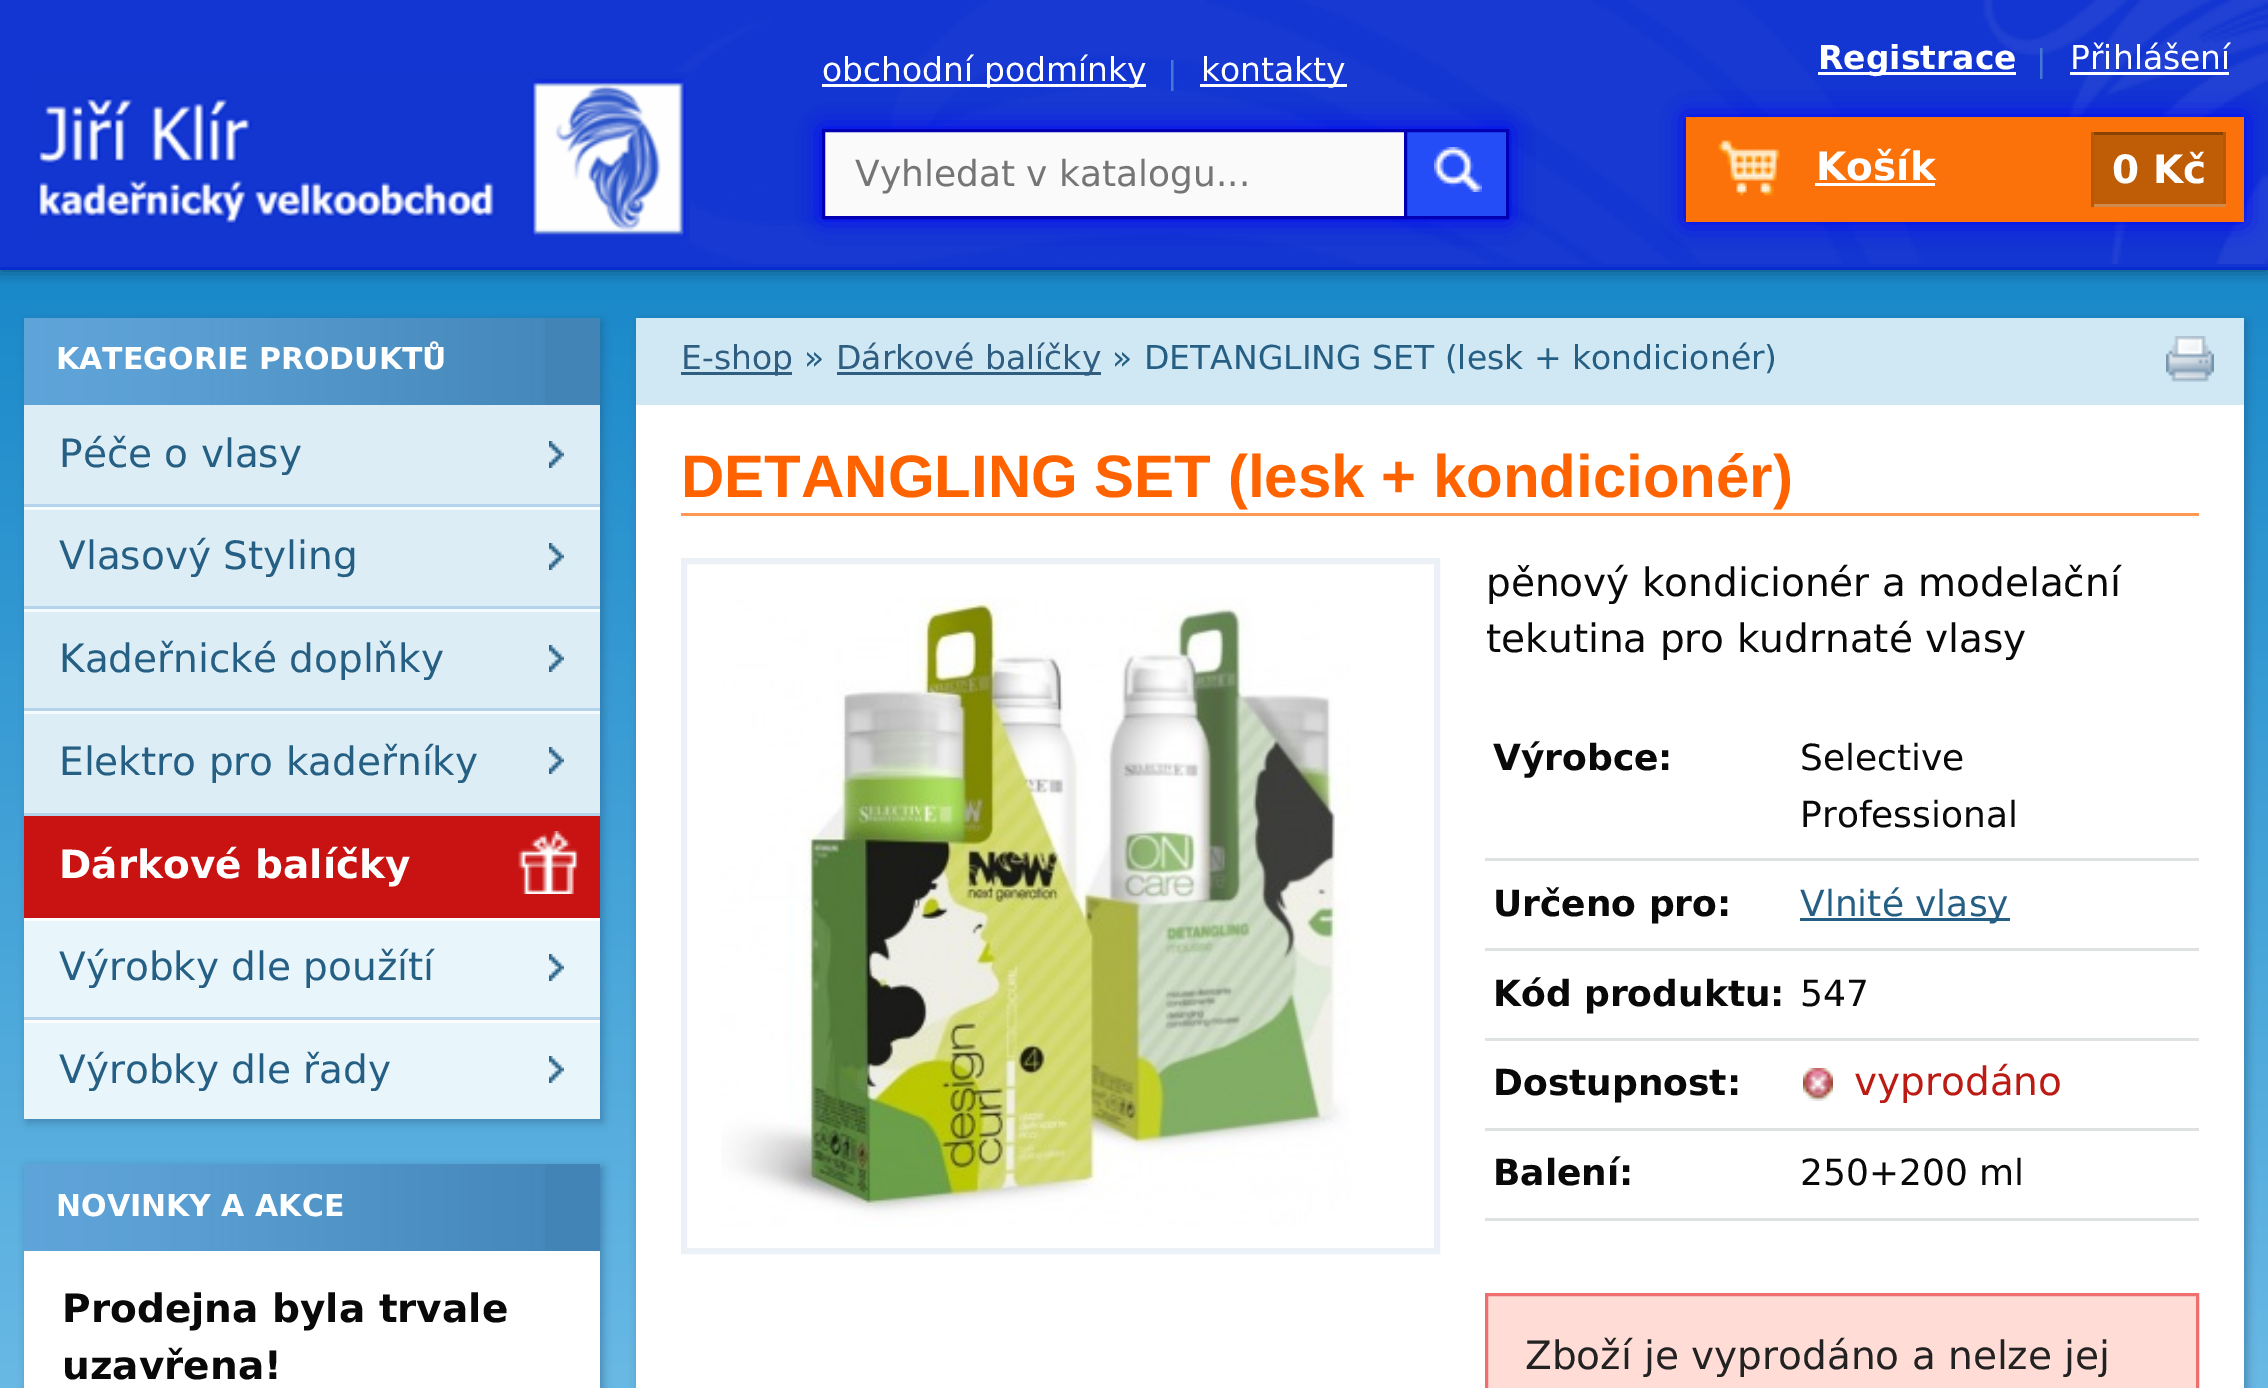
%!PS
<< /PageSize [2268 1388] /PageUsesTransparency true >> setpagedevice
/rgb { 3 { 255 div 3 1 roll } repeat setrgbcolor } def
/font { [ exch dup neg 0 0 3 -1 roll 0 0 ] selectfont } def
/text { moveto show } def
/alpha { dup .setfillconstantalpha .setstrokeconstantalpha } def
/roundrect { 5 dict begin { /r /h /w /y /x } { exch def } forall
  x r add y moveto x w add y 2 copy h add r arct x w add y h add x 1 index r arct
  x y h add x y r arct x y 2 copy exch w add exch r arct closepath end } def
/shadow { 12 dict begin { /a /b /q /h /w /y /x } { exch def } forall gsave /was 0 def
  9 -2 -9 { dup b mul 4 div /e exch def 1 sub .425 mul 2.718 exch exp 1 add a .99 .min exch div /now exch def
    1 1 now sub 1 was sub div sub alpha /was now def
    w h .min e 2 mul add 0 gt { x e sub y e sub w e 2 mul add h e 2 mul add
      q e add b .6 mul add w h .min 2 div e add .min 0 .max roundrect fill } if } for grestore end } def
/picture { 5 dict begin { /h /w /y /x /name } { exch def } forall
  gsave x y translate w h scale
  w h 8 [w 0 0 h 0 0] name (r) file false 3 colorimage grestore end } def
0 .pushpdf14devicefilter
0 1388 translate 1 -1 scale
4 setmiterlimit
255 255 255 rgb
0 0 2268 1388 rectfill
(img_01.rgb) 0 270 2268 1118 picture
0 0 0 rgb
0 0 2268 270 0 7.5 0.45 shadow
19 53 209 rgb
0 0 2268 267 rectfill
8 44 206 rgb
0 267 2268 3 rectfill
(img_02.rgb) 643 0 1625 264 picture
(img_03.rgb) 37 72 653 168 picture
255 255 255 rgb
822 84 324 3 rectfill
1200 84 147 3 rectfill
0 0 255 rgb
822 129 687 90 0 12 1 shadow
250 250 250 rgb
823.5 130.5 moveto 582 0 rlineto 0 87 rlineto -582 0 rlineto closepath gsave fill grestore
1 1 179 rgb
3 setlinewidth
stroke
36 77 248 rgb
1405.5 130.5 moveto 102 0 rlineto 0 87 rlineto -102 0 rlineto closepath gsave fill grestore
1 1 179 rgb
stroke
(img_04.rgb) 1434 147 48 45 picture
255 255 255 rgb
1818 72 198 3 rectfill
2070 72 159 3 rectfill
0 0 255 rgb
1686 117 558 105 0 12 1 shadow
252 114 10 rgb
1686 117 558 105 rectfill
(img_05.rgb) 1718 140 62 56 picture
255 255 255 rgb
1815 183 120 3 rectfill
190 93 5 rgb
2094 135 129 69 rectfill
136 66 4 rgb
2091 132 135 3 rectfill
182 89 5 rgb
2223 132 3 75 rectfill
208 139 76 rgb
2091 204 135 3 rectfill
182 89 5 rgb
2091 132 3 75 rectfill
38 79 123 rgb
27 321 576 801 0 4.5 0.45 shadow
66 132 182 rgb
545 318 55 87 rectfill
(img_06.rgb) 24 318 521 87 picture
221 237 246 rgb
24 405 576 408 rectfill
181 212 236 rgb
24 504 576 3 rectfill
(img_07.rgb) 549 441 15 27 picture
244 251 254 rgb
24 507 576 3 rectfill
181 212 236 rgb
24 606 576 3 rectfill
(img_07.rgb) 549 543 15 27 picture
244 251 254 rgb
24 609 576 3 rectfill
181 212 236 rgb
24 708 576 3 rectfill
(img_07.rgb) 549 645 15 27 picture
244 251 254 rgb
24 711 576 3 rectfill
181 212 236 rgb
24 813 576 3 rectfill
(img_07.rgb) 549 747 15 27 picture
201 18 18 rgb
24 816 576 99 rectfill
195 19 19 rgb
24 915 576 3 rectfill
(img_08.rgb) 518 831 61 63 picture
232 245 251 rgb
24 921 576 96 rectfill
252 252 252 rgb
24 918 576 3 rectfill
181 212 236 rgb
24 1017 576 3 rectfill
(img_09.rgb) 549 954 15 27 picture
232 245 251 rgb
24 1023 576 96 rectfill
252 252 252 rgb
24 1020 576 3 rectfill
(img_09.rgb) 549 1056 15 27 picture
38 79 123 rgb
27 1167 576 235 0 4.5 0.45 shadow
66 132 182 rgb
545 1164 55 87 rectfill
(img_06.rgb) 24 1164 521 87 picture
255 255 255 rgb
24 1251 576 137 rectfill
38 79 123 rgb
639 321 1608 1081 0 4.5 0.45 shadow
255 255 255 rgb
636 405 1608 983 rectfill
208 231 244 rgb
636 318 1608 87 rectfill
47 94 128 rgb
681 372 111 3 rectfill
837 372 264 3 rectfill
(img_10.rgb) 2166 336 48 46 picture
255 152 83 rgb
681 513 1518 3 rectfill
235 241 247 rgb
6 setlinewidth
684 561 753 690 rectstroke
(img_11.rgb) 721 597 629 630 picture
222 226 226 rgb
1485 858 714 3 rectfill
1485 948 714 3 rectfill
38 95 132 rgb
1800 918 210 3 rectfill
222 226 226 rgb
1485 1038 714 3 rectfill
1485 1128 714 3 rectfill
(img_12.rgb) 1803 1068 30 33 picture
1485 1218 714 3 rectfill
255 221 214 rgb
1486.5 1294.5 moveto 711 0 rlineto 0 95 rlineto -711 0 rlineto closepath gsave fill grestore
239 111 111 rgb
3 setlinewidth
stroke
/DejaVuSans-Regular 33 font
255 255 255 rgb
(obchodní podmínky) 822 81 text
/LiberationSans-Regular 33 font
65 121 213 rgb
(|) 1168 84 text
/DejaVuSans-Regular 33 font
255 255 255 rgb
(kontakty) 1201 81 text
/DejaVuSans-Regular 36 font
117 117 117 rgb
(Vyhledat v katalogu...) 855 186 text
/DejaVuSans-Bold 33 font
255 255 255 rgb
(Registrace) 1818 69 text
/LiberationSans-Regular 33 font
65 121 213 rgb
(|) 2037 72 text
/DejaVuSans-Regular 33 font
255 255 255 rgb
(Přihlášení) 2070 69 text
/DejaVuSans-Bold 39 font
(Košík) 1816 180 text
(0 Kč) 2112 183 text
/DejaVuSans-Bold 30 font
(KATEGORIE PRODUKTŮ) 56 369 text
/DejaVuSans-Regular 39 font
38 95 132 rgb
(Péče o vlasy) 59 467 text
(Vlasový Styling) 59 569 text
(Kadeřnické doplňky) 59 672 text
(Elektro pro kadeřníky) 59 775 text
/DejaVuSans-Bold 39 font
255 255 255 rgb
(Dárkové balíčky) 59 878 text
/DejaVuSans-Regular 39 font
38 95 132 rgb
(Výrobky dle použítí) 59 980 text
(Výrobky dle řady) 59 1083 text
/DejaVuSans-Bold 30 font
255 255 255 rgb
(NOVINKY A AKCE) 56 1216 text
/DejaVuSans-Bold 39 font
9 9 9 rgb
(Prodejna byla trvale) 62 1322 text
(uzavřena!) 62 1379 text
/DejaVuSans-Regular 33 font
47 94 128 rgb
(E-shop) 681 369 text
38 95 132 rgb
(») 804 369 text
47 94 128 rgb
(Dárkové balíčky) 836 369 text
38 95 132 rgb
(») 1112 369 text
(DETANGLING SET \(lesk + kondicionér\)) 1144 369 text
/LiberationSans-Bold 60 font
255 99 0 rgb
(DETANGLING SET \(lesk + kondicionér\)) 681 497 text
/DejaVuSans-Regular 39 font
9 9 9 rgb
(pěnový kondicionér a modelační) 1486 596 text
(tekutina pro kudrnaté vlasy) 1486 652 text
/DejaVuSans-Bold 36 font
(Výrobce:) 1493 770 text
/DejaVuSans-Regular 36 font
(Selective) 1800 770 text
(Professional) 1800 827 text
/DejaVuSans-Bold 36 font
(Určeno pro:) 1493 916 text
/DejaVuSans-Regular 36 font
38 95 132 rgb
(Vlnité vlasy) 1800 916 text
/DejaVuSans-Bold 36 font
9 9 9 rgb
(Kód produktu:) 1493 1006 text
/DejaVuSans-Regular 36 font
(547) 1800 1006 text
/DejaVuSans-Bold 36 font
(Dostupnost:) 1493 1095 text
/DejaVuSans-Regular 39 font
188 27 20 rgb
(vyprodáno) 1854 1095 text
/DejaVuSans-Bold 36 font
9 9 9 rgb
(Balení:) 1493 1185 text
/DejaVuSans-Regular 36 font
(250+200 ml) 1800 1185 text
/DejaVuSans-Regular 39 font
34 34 34 rgb
(Zboží je vyprodáno a nelze jej) 1525 1369 text
.poppdf14devicefilter showpage
